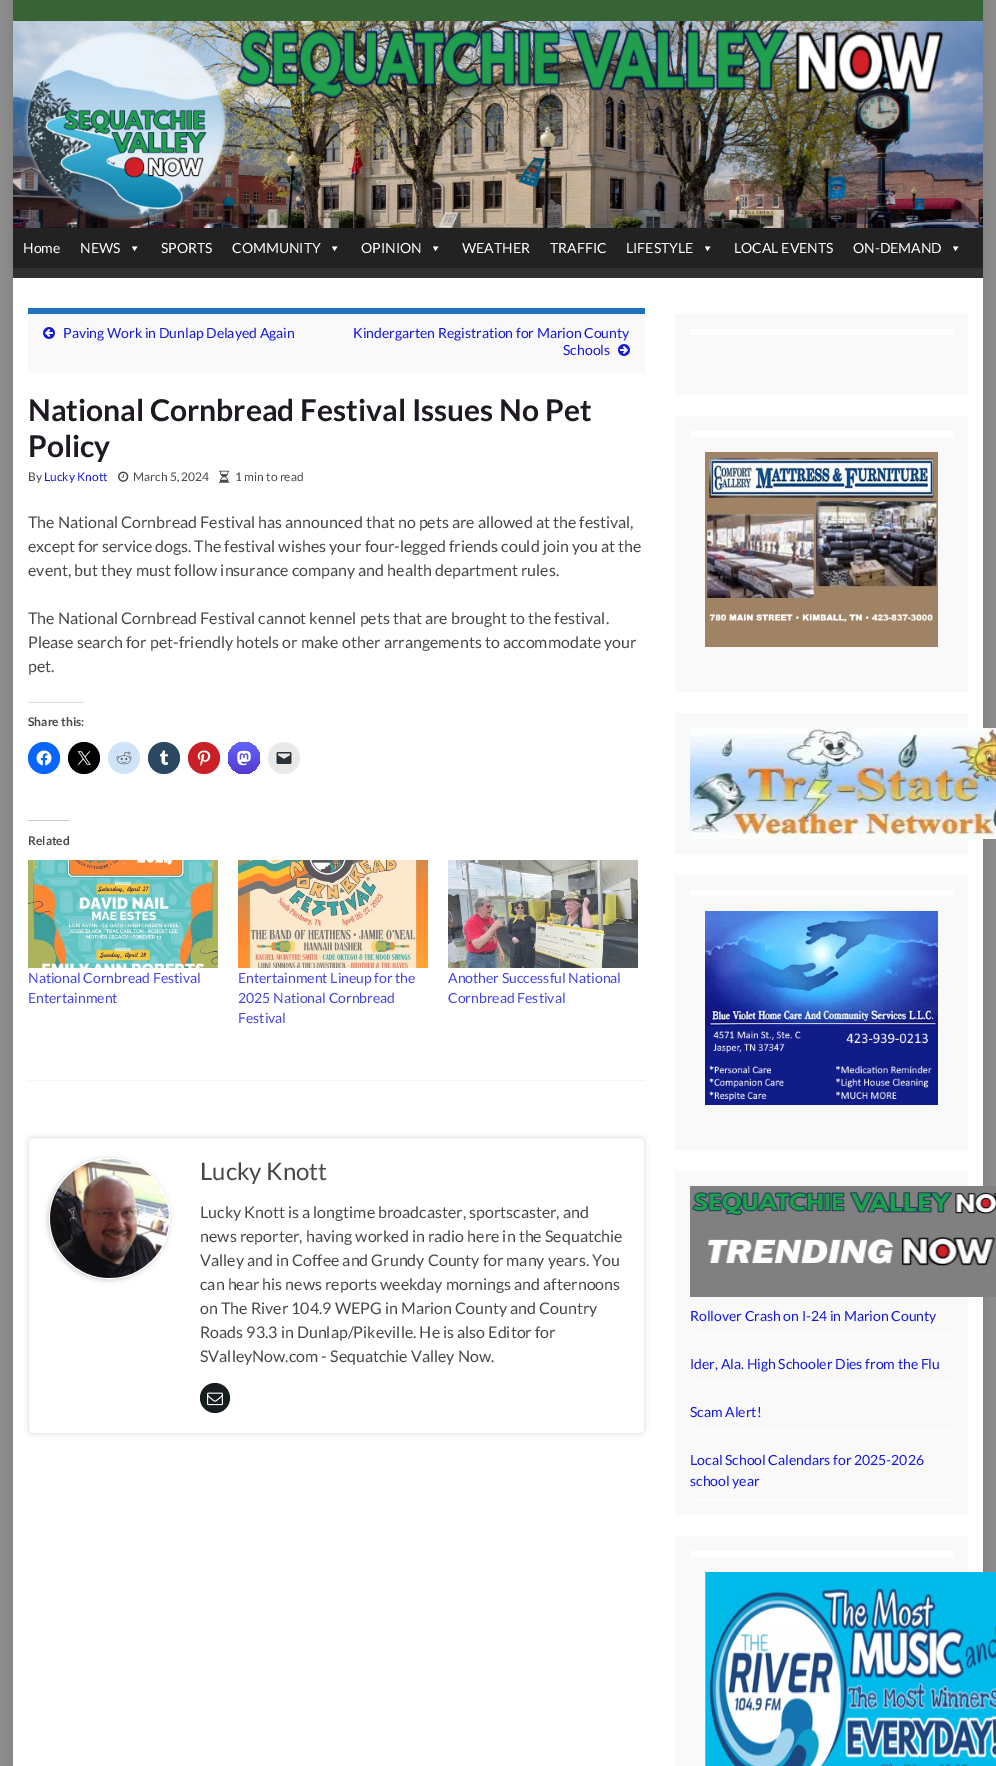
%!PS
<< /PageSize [996 1766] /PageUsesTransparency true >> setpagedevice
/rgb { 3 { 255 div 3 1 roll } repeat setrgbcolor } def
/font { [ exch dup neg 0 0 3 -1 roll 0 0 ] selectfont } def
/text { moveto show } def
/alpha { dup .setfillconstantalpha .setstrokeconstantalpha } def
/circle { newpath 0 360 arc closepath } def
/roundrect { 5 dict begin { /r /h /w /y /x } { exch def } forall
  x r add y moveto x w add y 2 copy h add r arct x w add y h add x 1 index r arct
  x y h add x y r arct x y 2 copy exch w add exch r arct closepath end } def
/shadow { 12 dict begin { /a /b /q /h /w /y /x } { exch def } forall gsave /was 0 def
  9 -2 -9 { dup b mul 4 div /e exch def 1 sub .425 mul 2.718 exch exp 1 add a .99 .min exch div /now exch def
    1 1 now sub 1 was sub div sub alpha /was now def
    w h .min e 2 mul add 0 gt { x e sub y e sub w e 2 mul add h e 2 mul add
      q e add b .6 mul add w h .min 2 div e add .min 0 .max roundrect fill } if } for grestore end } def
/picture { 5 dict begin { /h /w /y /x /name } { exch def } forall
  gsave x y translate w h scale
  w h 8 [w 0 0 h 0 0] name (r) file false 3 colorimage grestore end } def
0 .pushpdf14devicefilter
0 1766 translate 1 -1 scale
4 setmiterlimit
140 140 140 rgb
0 0 996 1766 rectfill
0 0 0 rgb
13 0 970 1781 0 5 0.1 shadow
55 99 53 rgb
13 0 970 21 rectfill
(img_01.rgb) 13 21 970 207 picture
48 48 48 rgb
13 268 970 10 rectfill
34 34 34 rgb
13 228 970 40 rectfill
255 255 255 rgb
137.5 246.5 moveto -3 4.5 rlineto -2.5 -4.5 rlineto closepath fill
337.5 246.5 moveto -3 4.5 rlineto -2.5 -4.5 rlineto closepath fill
438.5 246.5 moveto -3 4.5 rlineto -2.5 -4.5 rlineto closepath fill
710.5 246.5 moveto -3 4.5 rlineto -2.5 -4.5 rlineto closepath fill
958.5 246.5 moveto -3 4.5 rlineto -2.5 -4.5 rlineto closepath fill
13 278 970 1488 rectfill
249 249 249 rgb
28 314 617 59 rectfill
30 115 190 rgb
28 308 617 6 rectfill
(img_02.rgb) 43 327 12 12 picture
(img_03.rgb) 618 344 12 12 picture
(img_04.rgb) 118 471 11 11 picture
(img_05.rgb) 219 470 11 13 picture
220 220 222 rgb
28 702 56 1 rectfill
8 102 255 rgb
44 758 16 circle fill
(img_06.rgb) 36 750 16 16 picture
0 0 0 rgb
84 758 16 circle fill
(img_07.rgb) 77 751 14 14 picture
206 227 248 rgb
124 758 16 circle fill
(img_08.rgb) 116 751 16 14 picture
44 71 98 rgb
164 758 16 circle fill
(img_09.rgb) 159 750 10 15 picture
202 31 39 rgb
204 758 16 circle fill
(img_10.rgb) 197 750 14 16 picture
gsave 244 758 16 circle clip newpath
<< /ShadingType 2 /ColorSpace /DeviceRGB /Coords [244 774 244 742] /Extend [true true] /Function << /FunctionType 2 /Domain [0 1] /C0 [0.337 0.227 0.8] /C1 [0.388 0.392 1] /N 1 >> >> shfill grestore
(img_11.rgb) 237 750 14 16 picture
233 233 233 rgb
284 758 16 circle fill
(img_12.rgb) 276 752 16 12 picture
204 204 204 rgb
28 820 42 1 rectfill
(img_13.rgb) 28 860 190 108 picture
(img_14.rgb) 238 860 190 108 picture
(img_15.rgb) 448 860 190 108 picture
245 245 245 rgb
28 1080 617 1 rectfill
0 0 0 rgb
28 1137 617 297 5 2.5 0.1 shadow
255 255 255 rgb
28.5 1137.5 616 296 4.5 roundrect gsave fill grestore
235 237 240 rgb
stroke
0 0 0 rgb
48 1159 121 121 60.5 2.5 0.2 shadow
255 255 255 rgb
109.5 1218.5 60 circle stroke
(img_16.rgb) 50 1159 119 119 picture
24 30 31 rgb
215 1398 15 circle fill
(img_17.rgb) 207 1392 16 14 picture
249 249 249 rgb
675 314 293 81 rectfill
255 255 255 rgb
690 329 263 6 rectfill
249 249 249 rgb
675 416 293 276 rectfill
255 255 255 rgb
690 431 263 6 rectfill
(img_18.rgb) 705 452 233 195 picture
249 249 249 rgb
675 713 293 141 rectfill
(img_19.rgb) 690 728 306 111 picture
675 875 293 275 rectfill
255 255 255 rgb
690 890 263 6 rectfill
(img_20.rgb) 705 911 233 194 picture
249 249 249 rgb
675 1171 293 344 rectfill
(img_21.rgb) 690 1186 306 111 picture
255 255 255 rgb
690 1334 263 1 rectfill
690 1382 263 1 rectfill
690 1430 263 1 rectfill
690 1499 263 1 rectfill
249 249 249 rgb
675 1536 293 230 rectfill
255 255 255 rgb
690 1551 263 6 rectfill
(img_22.rgb) 705 1572 291 194 picture
/Lato-Regular 14 font
(Home) 23 253 text
(NEWS) 80 253 text
(SPORTS) 161 253 text
(COMMUNITY) 232 253 text
(OPINION) 361 253 text
(WEATHER) 462 253 text
(TRAFFIC) 550 253 text
(LIFESTYLE) 626 253 text
(LOCAL EVENTS) 734 253 text
(ON-DEMAND) 853 253 text
21 25 219 rgb
(Paving Work in Dunlap Delayed Again) 63 338 text
(Kindergarten Registration for Marion County) 353 338 text
(Schools) 563 355 text
/Lato-Bold 30 font
31 26 34 rgb
(National Cornbread Festival Issues No Pet) 28 421 text
(Policy) 28 457 text
/Lato-Regular 12 font
74 71 75 rgb
(By) 28 481 text
21 25 219 rgb
(Lucky Knott) 44 481 text
74 71 75 rgb
(March 5, 2024) 133 481 text
(1 min to read) 235 481 text
/Lato-Regular 16 font
(The National Cornbread Festival has announced that no pets are allowed at the festival,) 28 528 text
(except for service dogs. The festival wishes your four-legged friends could join you at the) 28 552 text
(event, but they must follow insurance company and health department rules.) 28 576 text
(The National Cornbread Festival cannot kennel pets that are brought to the festival.) 28 624 text
(Please search for pet-friendly hotels or make other arrangements to accommodate your) 28 648 text
(pet.) 28 672 text
/Lato-Bold 12 font
(Share this:) 28 726 text
(Related) 28 845 text
/Lato-Regular 14 font
68 71 226 rgb
(National Cornbread Festival) 28 983 text
(Entertainment) 28 1003 text
(Entertainment Lineup for the) 238 983 text
(2025 National Cornbread) 238 1003 text
(Festival) 238 1023 text
(Another Successful National) 448 983 text
(Cornbread Festival) 448 1003 text
/Lato-Regular 24 font
74 71 75 rgb
(Lucky Knott) 200 1180 text
/Lato-Regular 16 font
(Lucky Knott is a longtime broadcaster, sportscaster, and) 200 1218 text
(news reporter, having worked in radio here in the Sequatchie) 200 1242 text
(Valley and in Coffee and Grundy County for many years. You) 200 1266 text
(can hear his news reports weekday mornings and afternoons) 200 1290 text
(on The River 104.9 WEPG in Marion County and Country) 200 1314 text
(Roads 93.3 in Dunlap/Pikeville. He is also Editor for) 200 1338 text
(SValleyNow.com - Sequatchie Valley Now.) 200 1362 text
/Lato-Regular 14 font
21 25 219 rgb
(Rollover Crash on I-24 in Marion County) 690 1321 text
(Ider, Ala. High Schooler Dies from the Flu) 690 1369 text
(Scam Alert!) 690 1417 text
(Local School Calendars for 2025-2026) 690 1465 text
(school year) 690 1486 text
.poppdf14devicefilter showpage
